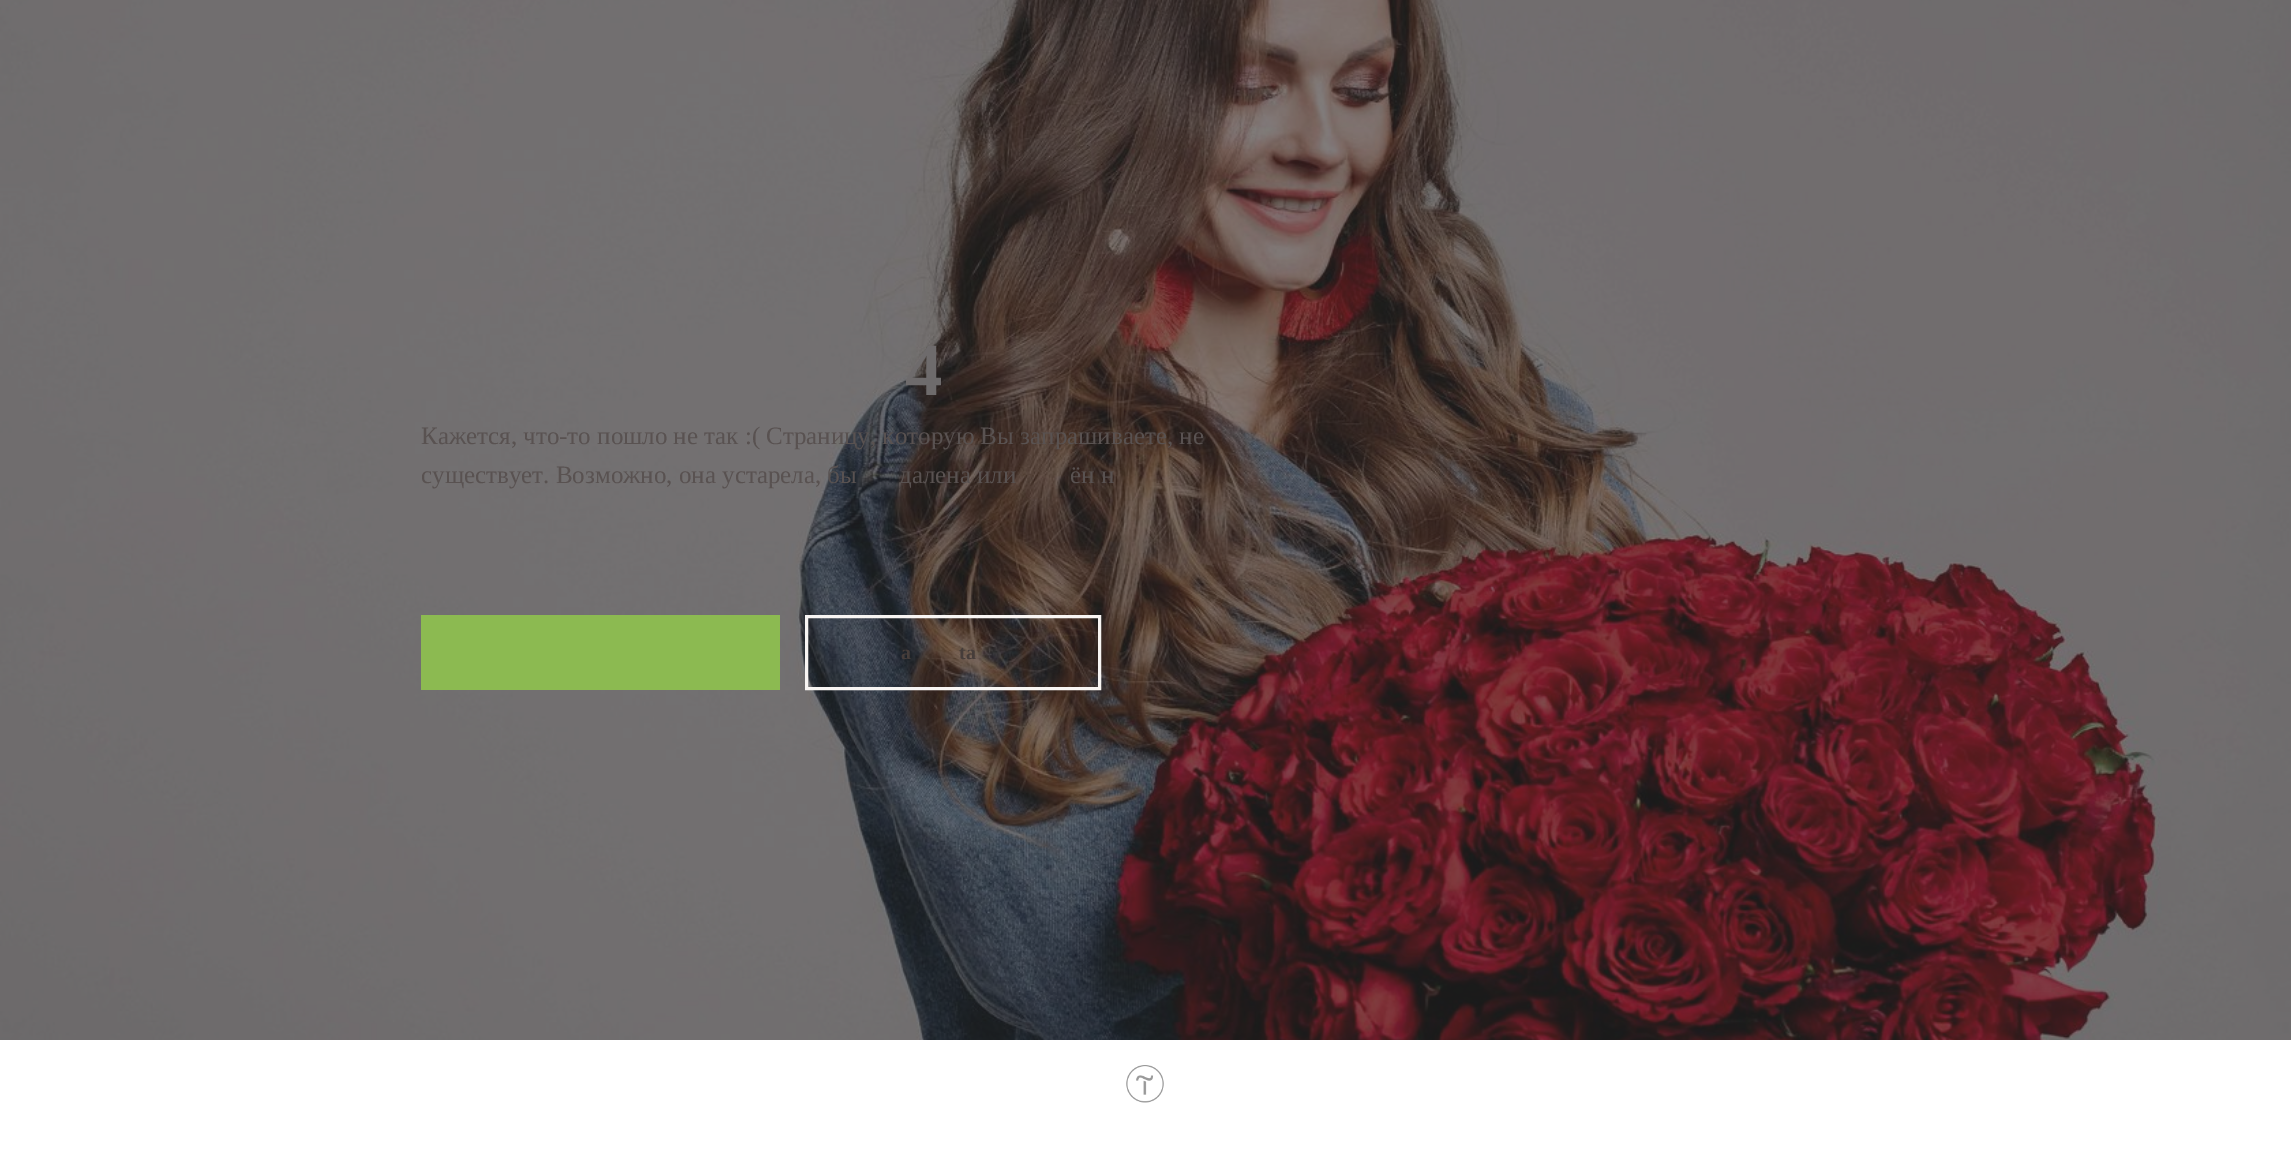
%!PS
<< /PageSize [2291 1154] >> setpagedevice
/rgb { 3 { 255 div 3 1 roll } repeat setrgbcolor } def
/font { [ exch dup neg 0 0 3 -1 roll 0 0 ] selectfont } def
/text { moveto show } def
/picture { 5 dict begin { /h /w /y /x /name } { exch def } forall
  gsave x y translate w h scale
  w h 8 [w 0 0 h 0 0] name (r) file false 3 colorimage grestore end } def
0 1154 translate 1 -1 scale
4 setmiterlimit
255 255 255 rgb
0 0 2291 1154 rectfill
(img_01.rgb) 0 0 2291 1040 picture
140 186 81 rgb
421 615 359 75 rectfill
248 245 243 rgb
3 setlinewidth
806.5 616.5 293 72 rectstroke
(img_02.rgb) 1126 1065 38 38 picture
/LiberationSerif-Bold 75 font
110 107 108 rgb
905 395 moveto 4 0 (4) ashow
/LiberationSerif-Regular 25 font
89 82 81 rgb
(Кажется, что-то пошло не так :\( Страницу, которую Вы запрашиваете, не) 421 444 text
(существует. Возможно, она устарела, бы) 421 483 text
(далена или) 899 483 text
(ён н) 1070 483 text
/LiberationSerif-Bold 20 font
70 61 58 rgb
(а) 901 659 text
(ta) 959 659 text
showpage
